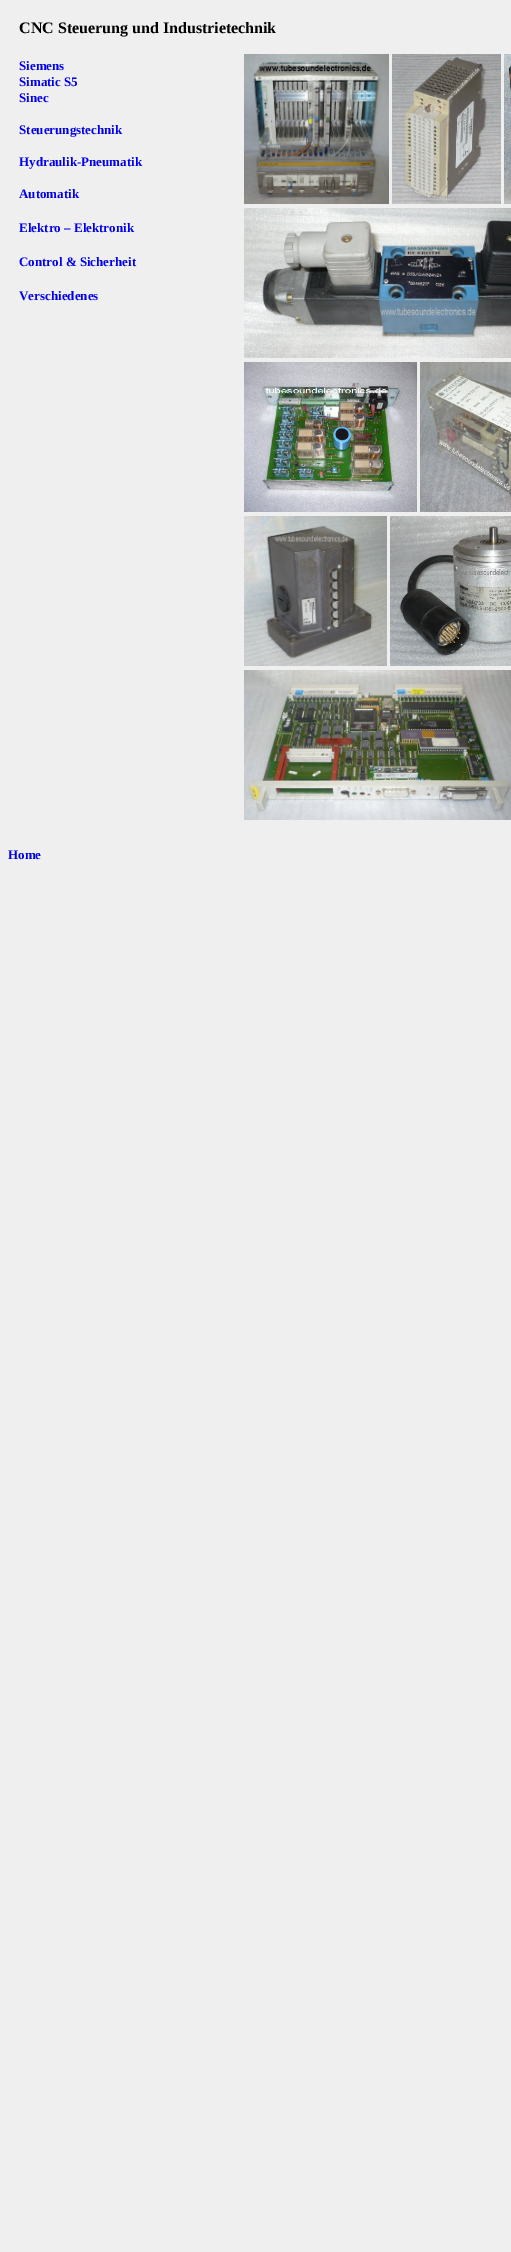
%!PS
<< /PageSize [511 2252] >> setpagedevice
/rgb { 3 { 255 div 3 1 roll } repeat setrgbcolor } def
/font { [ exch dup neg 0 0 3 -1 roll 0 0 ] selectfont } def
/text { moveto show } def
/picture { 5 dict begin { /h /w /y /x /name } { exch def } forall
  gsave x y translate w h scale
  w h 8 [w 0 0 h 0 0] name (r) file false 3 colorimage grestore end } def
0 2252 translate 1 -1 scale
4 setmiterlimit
239 239 239 rgb
0 0 511 2252 rectfill
(img_01.rgb) 244 54 145 150 picture
(img_02.rgb) 392 54 109 150 picture
(img_03.rgb) 504 54 7 150 picture
(img_04.rgb) 244 208 267 150 picture
(img_05.rgb) 244 362 173 150 picture
(img_06.rgb) 420 362 91 150 picture
(img_07.rgb) 244 516 143 150 picture
(img_08.rgb) 390 516 121 150 picture
(img_09.rgb) 244 670 267 150 picture
/LiberationSerif-Bold 16 font
0 0 0 rgb
(CNC Steuerung und Industrietechnik) 19 33 text
/LiberationSerif-Bold 13 font
0 0 238 rgb
(Siemens) 19 70 text
(Simatic S5) 19 86 text
(Sinec) 19 102 text
(Steuerungstechnik) 19 134 text
(Hydraulik-Pneumatik) 19 166 text
(Automatik) 19 198 text
(Elektro – Elektronik) 19 232 text
(Control & Sicherheit) 19 266 text
(Verschiedenes) 19 300 text
(Home) 8 859 text
showpage
